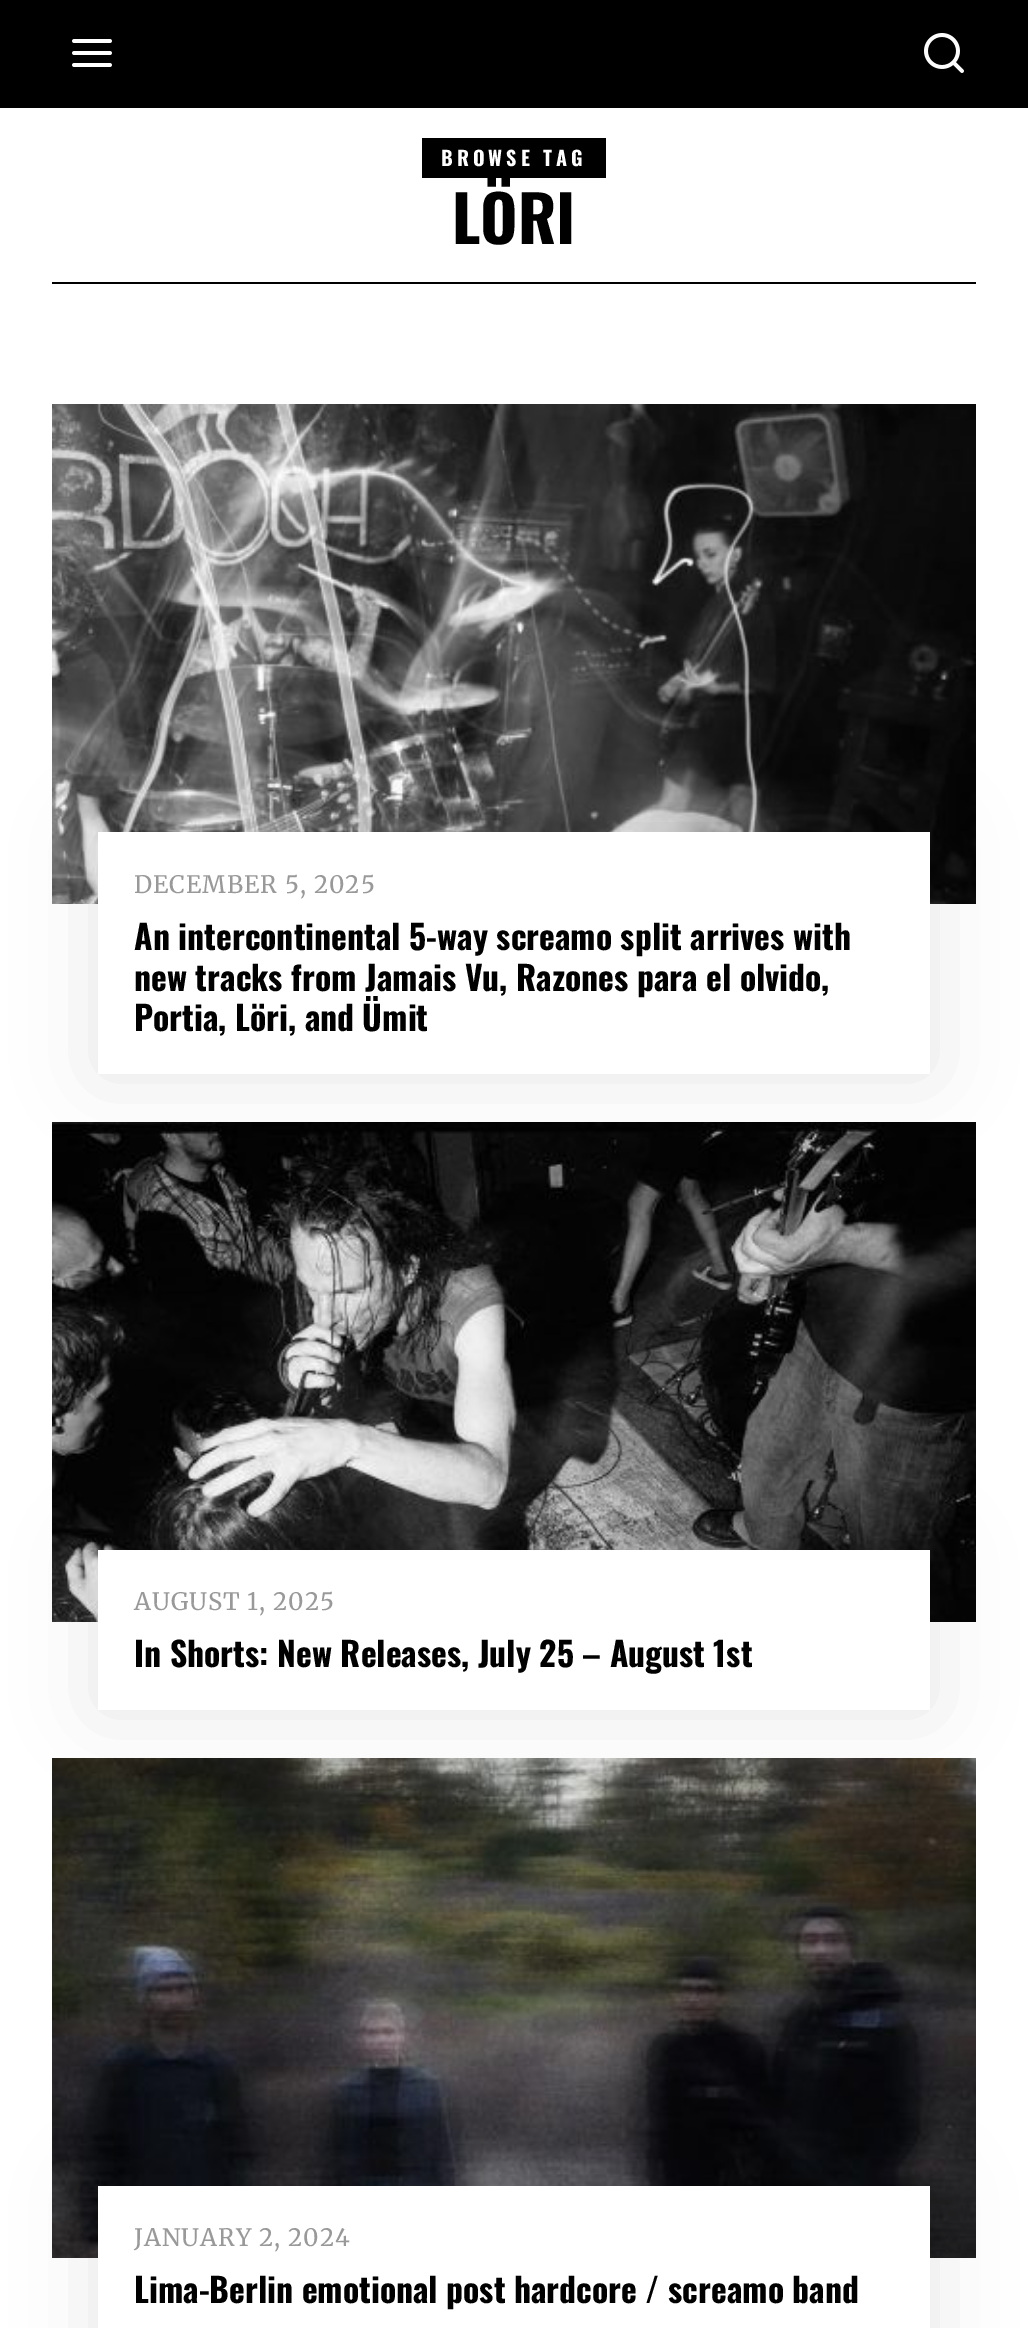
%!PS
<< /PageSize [1028 2328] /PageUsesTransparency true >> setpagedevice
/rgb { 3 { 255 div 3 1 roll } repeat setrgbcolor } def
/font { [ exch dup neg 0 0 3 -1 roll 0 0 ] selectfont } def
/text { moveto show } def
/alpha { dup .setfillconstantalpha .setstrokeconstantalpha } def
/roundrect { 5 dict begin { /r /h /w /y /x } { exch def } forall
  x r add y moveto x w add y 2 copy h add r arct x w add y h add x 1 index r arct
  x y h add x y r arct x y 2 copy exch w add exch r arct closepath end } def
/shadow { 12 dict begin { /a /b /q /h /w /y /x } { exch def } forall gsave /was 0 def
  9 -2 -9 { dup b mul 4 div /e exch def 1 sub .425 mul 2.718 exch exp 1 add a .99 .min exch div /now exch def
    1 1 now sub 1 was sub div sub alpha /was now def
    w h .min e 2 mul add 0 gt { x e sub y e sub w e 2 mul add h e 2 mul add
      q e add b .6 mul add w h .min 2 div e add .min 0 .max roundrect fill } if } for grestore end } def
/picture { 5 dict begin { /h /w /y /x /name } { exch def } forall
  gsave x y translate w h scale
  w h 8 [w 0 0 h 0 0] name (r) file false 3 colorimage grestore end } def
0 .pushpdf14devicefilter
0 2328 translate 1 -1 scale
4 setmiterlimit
255 255 255 rgb
0 0 1028 2328 rectfill
0 0 0 rgb
0 0 1028 108 rectfill
(img_01.rgb) 72 39 40 28 picture
(img_02.rgb) 924 33 40 40 picture
52 282 924 2 rectfill
422 138 184 40 rectfill
(img_03.rgb) 52 404 924 500 picture
98 832 832 242 0 40 0.1 shadow
255 255 255 rgb
98 832 832 242 rectfill
(img_04.rgb) 52 1122 924 500 picture
0 0 0 rgb
98 1550 832 160 0 40 0.1 shadow
255 255 255 rgb
98 1550 832 160 rectfill
(img_05.rgb) 52 1758 924 500 picture
0 0 0 rgb
98 2186 832 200 0 40 0.1 shadow
255 255 255 rgb
98 2186 832 142 rectfill
/Oswald-Bold 20 font
441 166 moveto 4 0 (BROWSE TAG) ashow
/Oswald-Bold 64 font
0 0 0 rgb
(LÖRI) 452 244 text
/Merriweather-Regular 24 font
153 153 153 rgb
134 893 moveto 1 0 (DECEMBER 5, 2025) ashow
/Oswald-Bold 33.6 font
0 0 0 rgb
(An intercontinental 5-way screamo split arrives with) 134 950 text
(new tracks from Jamais Vu, Razones para el olvido,) 134 991 text
(Portia, Löri, and Ümit) 134 1031 text
/Merriweather-Regular 24 font
153 153 153 rgb
134 1610 moveto 1 0 (AUGUST 1, 2025) ashow
/Oswald-Bold 33.6 font
0 0 0 rgb
(In Shorts: New Releases, July 25 – August 1st) 134 1667 text
/Merriweather-Regular 24 font
153 153 153 rgb
134 2246 moveto 1 0 (JANUARY 2, 2024) ashow
/Oswald-Bold 33.6 font
0 0 0 rgb
(Lima-Berlin emotional post hardcore / screamo band) 134 2303 text
.poppdf14devicefilter showpage
